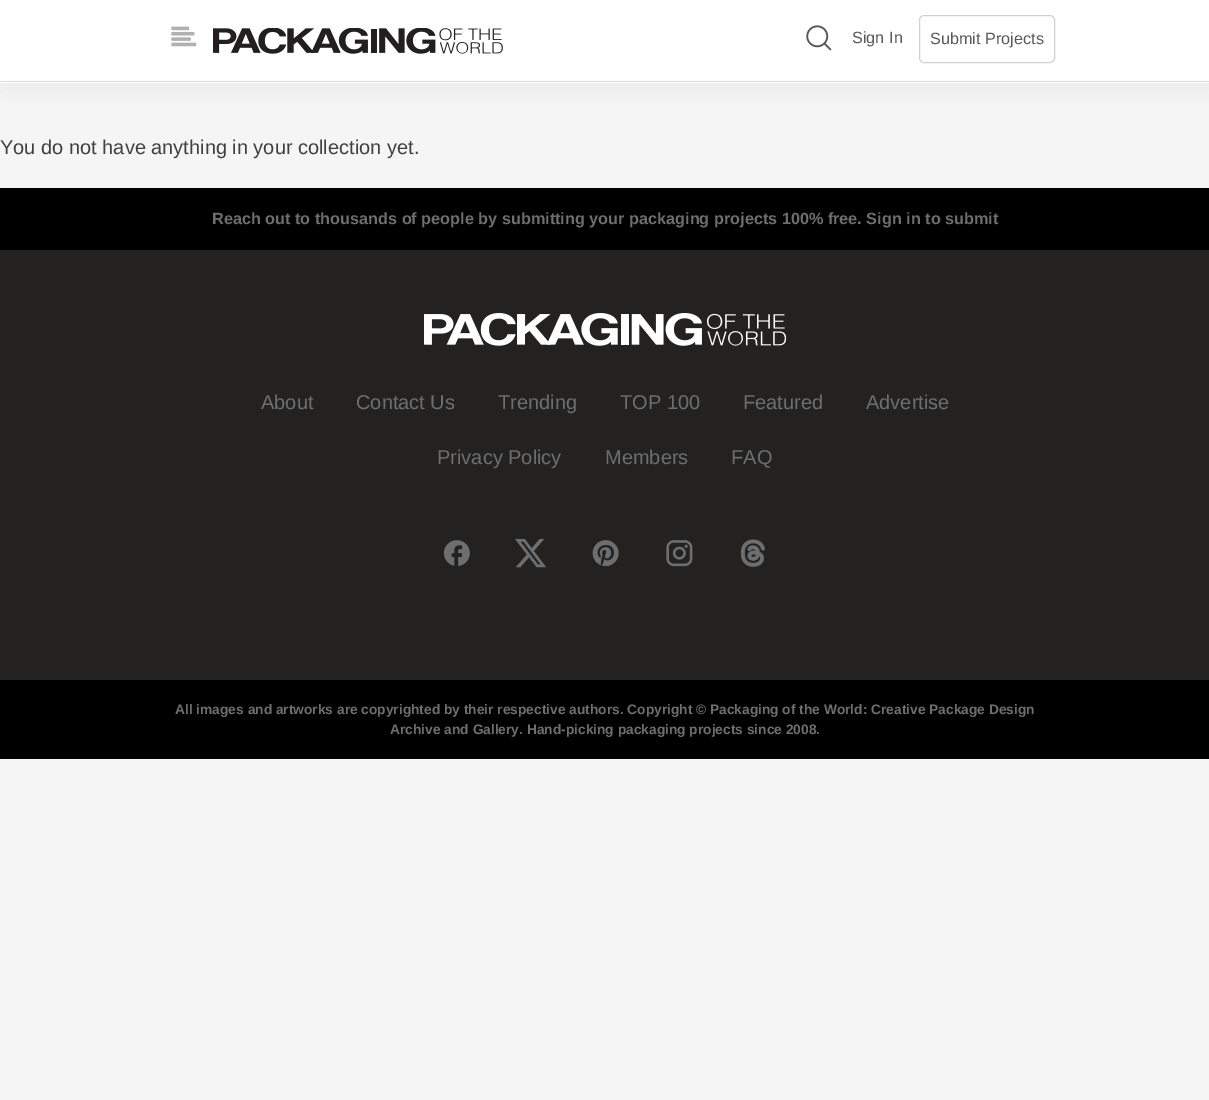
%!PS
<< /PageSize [1209 1100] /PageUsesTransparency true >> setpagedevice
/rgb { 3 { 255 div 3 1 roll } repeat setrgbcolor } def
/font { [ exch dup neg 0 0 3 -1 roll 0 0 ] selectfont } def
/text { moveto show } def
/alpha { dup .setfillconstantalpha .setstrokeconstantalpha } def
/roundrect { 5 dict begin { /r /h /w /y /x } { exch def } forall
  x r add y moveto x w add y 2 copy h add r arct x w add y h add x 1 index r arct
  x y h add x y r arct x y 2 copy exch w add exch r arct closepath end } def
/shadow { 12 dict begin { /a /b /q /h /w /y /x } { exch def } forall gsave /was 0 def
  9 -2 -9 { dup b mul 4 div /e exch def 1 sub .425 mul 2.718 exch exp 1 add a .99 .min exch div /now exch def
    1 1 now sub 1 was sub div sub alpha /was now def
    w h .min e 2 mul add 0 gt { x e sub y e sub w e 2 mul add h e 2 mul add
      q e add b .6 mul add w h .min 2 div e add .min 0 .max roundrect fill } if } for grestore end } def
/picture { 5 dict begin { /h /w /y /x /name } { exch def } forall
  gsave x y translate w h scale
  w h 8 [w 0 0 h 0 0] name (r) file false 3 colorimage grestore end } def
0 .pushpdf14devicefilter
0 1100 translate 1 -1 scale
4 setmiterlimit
245 245 245 rgb
0 0 1209 1100 rectfill
30 30 30 rgb
3 5 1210 83 0 12.5 0.05 shadow
255 255 255 rgb
0 0 1209 83 rectfill
219 219 219 rgb
0 81 1209 1 rectfill
(img_01.rgb) 171 26 26 21 picture
(img_02.rgb) 213 28 290 26 picture
(img_03.rgb) 806 25 26 26 picture
209 209 209 rgb
919.5 15.5 135 47 4.5 roundrect stroke
35 34 33 rgb
0 250 1209 430 rectfill
0 0 0 rgb
0 188 1209 62 rectfill
(img_04.rgb) 424 313 362 33 picture
(img_05.rgb) 443 540 27 26 picture
(img_06.rgb) 515 538 31 30 picture
(img_07.rgb) 592 540 27 27 picture
(img_08.rgb) 666 540 27 27 picture
(img_09.rgb) 740 539 25 28 picture
0 680 1209 79 rectfill
/LiberationSans-Regular 16.25 font
88 89 91 rgb
(Sign In) 852 43 text
(Submit Projects) 930 44 text
/LiberationSans-Regular 20 font
64 64 64 rgb
(You do not have anything in your collection yet.) 0 154 text
/LiberationSans-Bold 16.25 font
109 110 112 rgb
(Reach out to thousands of people by submitting your packaging projects 100% free. Sign in to submit) 212 224 text
/LiberationSans-Regular 20 font
(About) 261 409 text
(Contact Us) 356 409 text
(Trending) 498 409 text
(TOP 100) 620 409 text
(Featured) 743 409 text
(Advertise) 866 409 text
(Privacy Policy) 437 464 text
(Members) 605 464 text
(FAQ) 731 464 text
/LiberationSans-Bold 13.75 font
(All images and artworks are copyrighted by their respective authors. Copyright © Packaging of the World: Creative Package Design) 175 714 text
(Archive and Gallery. Hand-picking packaging projects since 2008.) 390 734 text
.poppdf14devicefilter showpage
